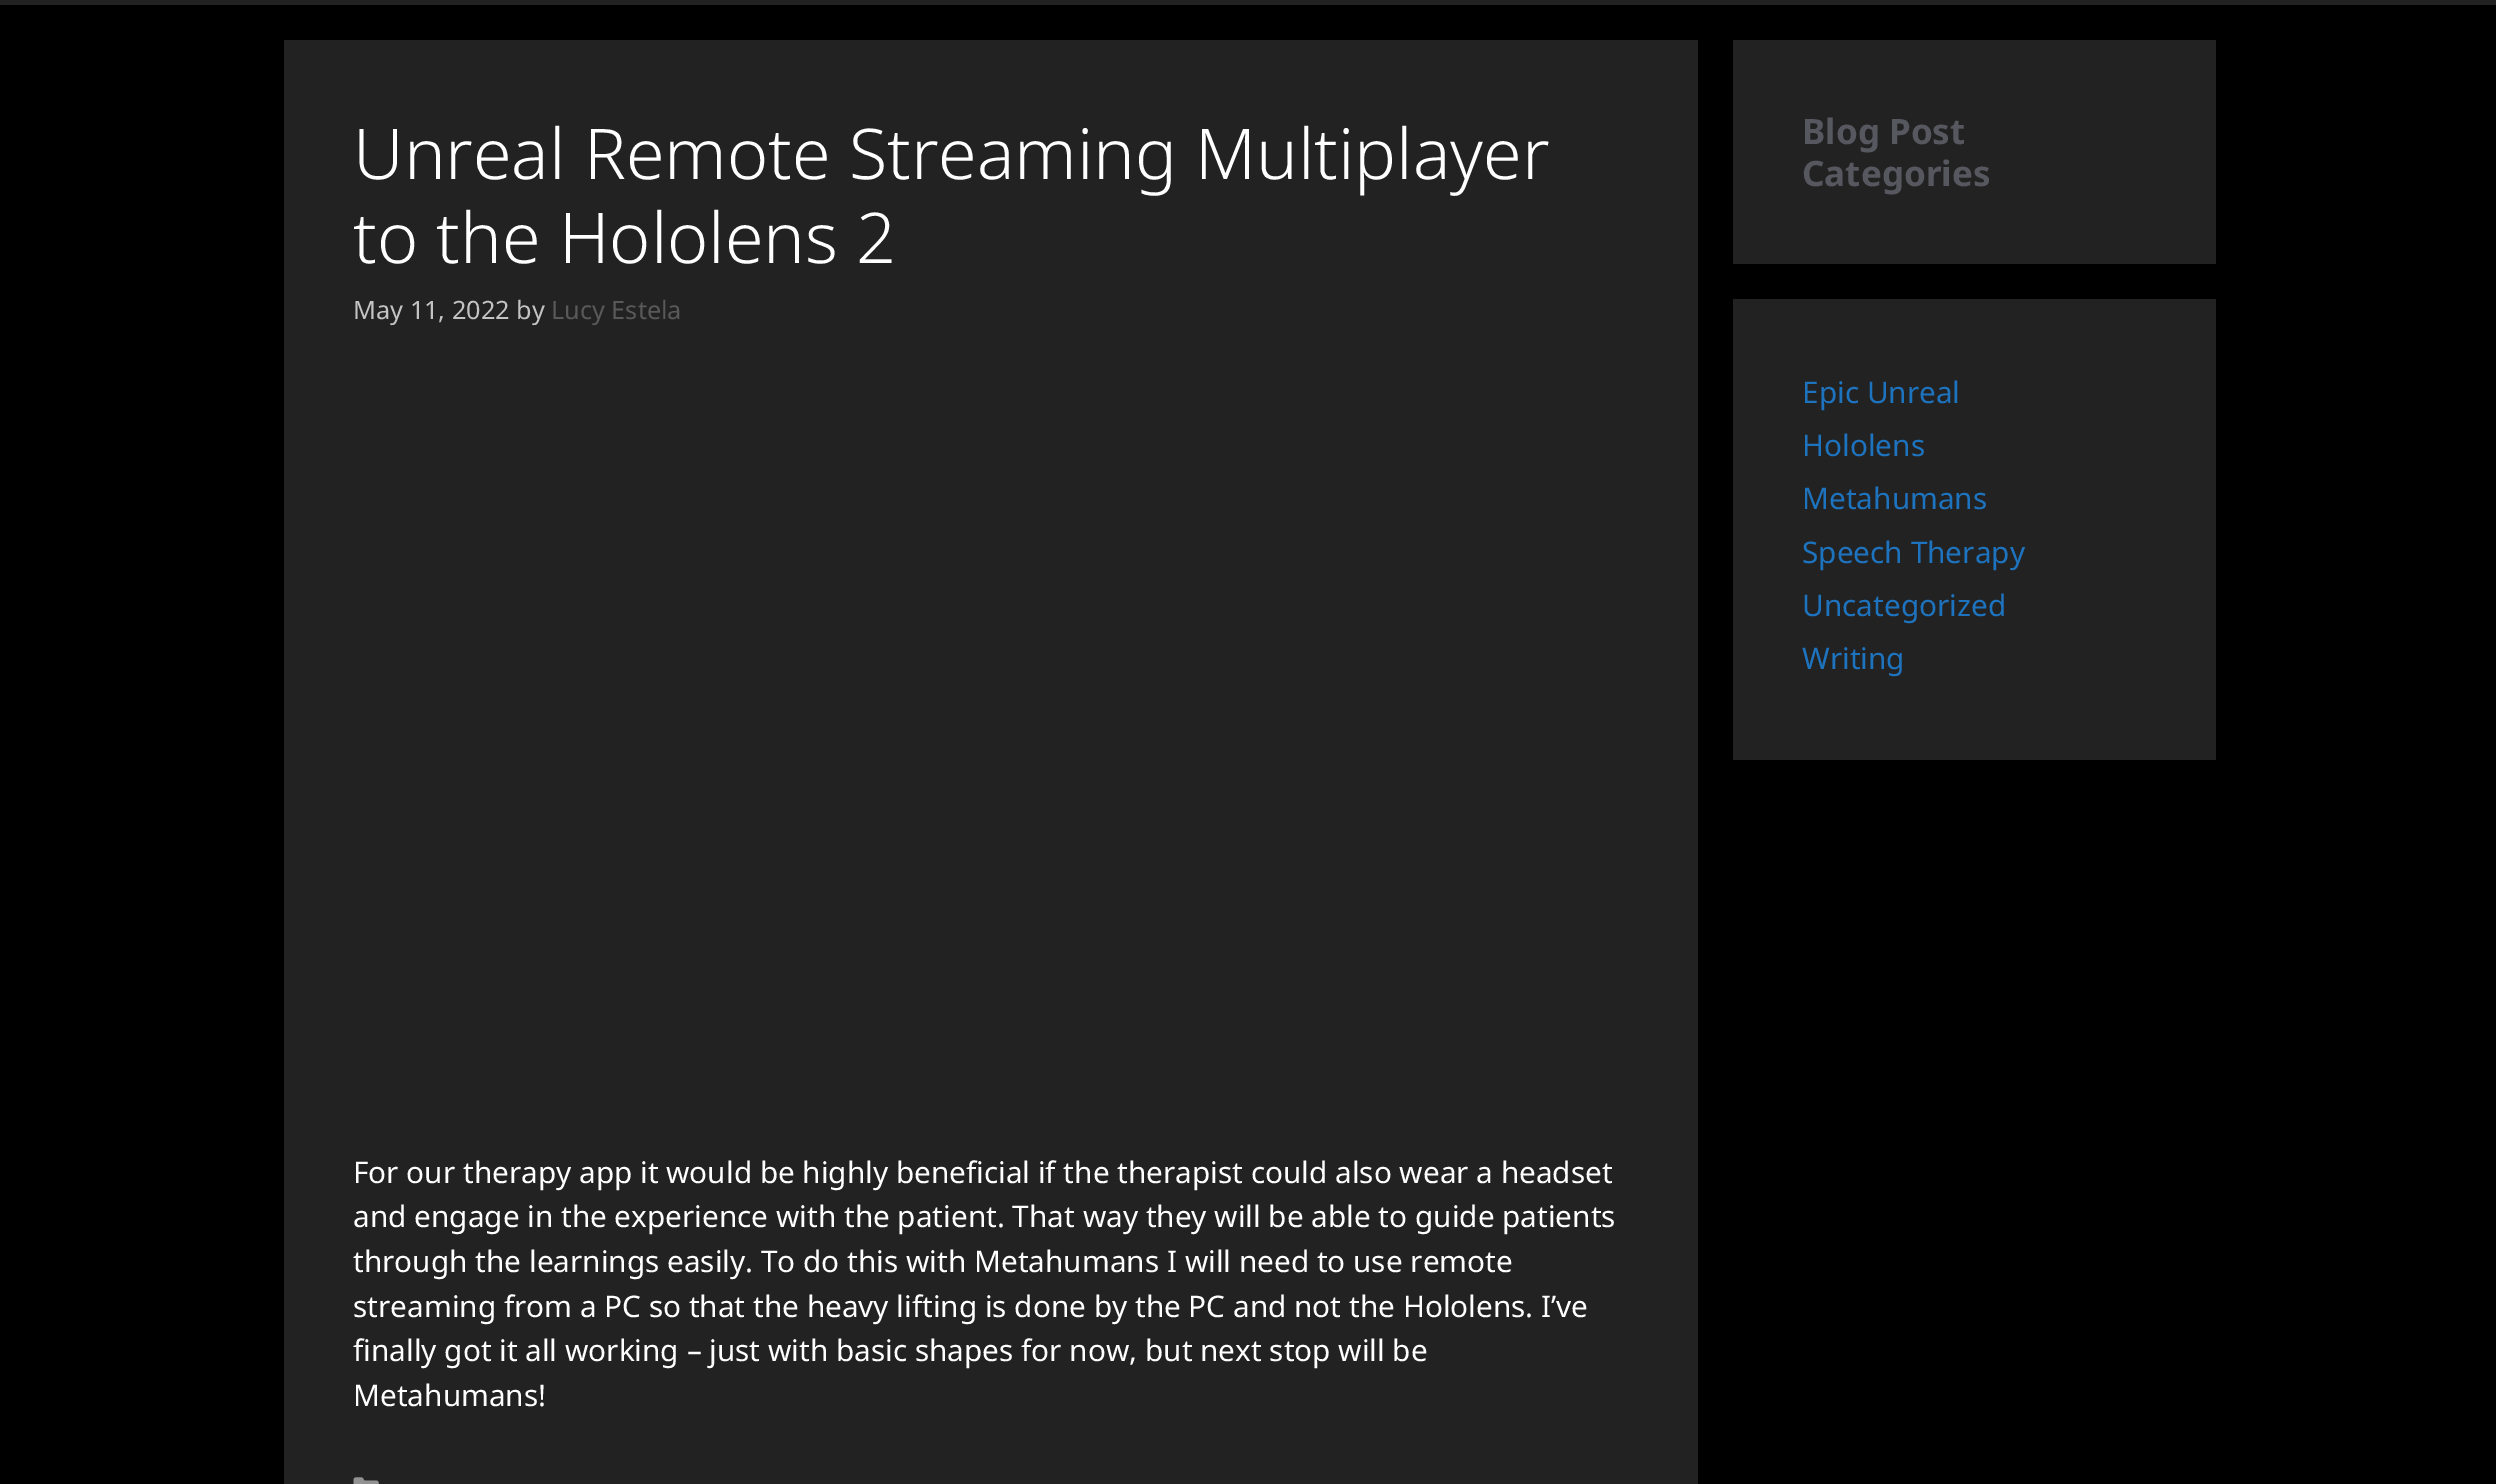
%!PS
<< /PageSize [2496 1484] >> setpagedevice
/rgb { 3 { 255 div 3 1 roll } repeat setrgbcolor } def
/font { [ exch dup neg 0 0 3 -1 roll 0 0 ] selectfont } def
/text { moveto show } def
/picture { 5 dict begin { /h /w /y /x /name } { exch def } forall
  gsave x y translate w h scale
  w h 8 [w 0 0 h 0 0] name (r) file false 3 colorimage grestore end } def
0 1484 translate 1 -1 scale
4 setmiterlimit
0 0 0 rgb
0 0 2496 1484 rectfill
34 34 34 rgb
0 0 2496 5 rectfill
284 40 1414 1444 rectfill
(img_01.rgb) 353 1477 26 7 picture
1733 40 483 224 rectfill
1733 299 483 461 rectfill
/NotoSans-Light 70 font
255 255 255 rgb
(Unreal Remote Streaming Multiplayer) 353 179 text
(to the Hololens 2) 353 263 text
/NotoSans-Regular 25.25 font
195 195 195 rgb
(May 11, 2022 by) 353 319 text
89 89 89 rgb
(Lucy Estela) 551 319 text
/NotoSans-Regular 29.75 font
255 255 255 rgb
(For our therapy app it would be highly beneficial if the therapist could also wear a headset) 353 1183 text
(and engage in the experience with the patient. That way they will be able to guide patients) 353 1227 text
(through the learnings easily. To do this with Metahumans I will need to use remote) 353 1272 text
(streaming from a PC so that the heavy lifting is done by the PC and not the Hololens. I’ve) 353 1317 text
(finally got it all working – just with basic shapes for now, but next stop will be) 353 1361 text
(Metahumans!) 353 1406 text
/NotoSans-Bold 35 font
87 87 96 rgb
(Blog Post) 1802 144 text
(Categories) 1802 186 text
/NotoSans-Regular 29.75 font
30 115 190 rgb
(Epic Unreal) 1802 403 text
(Hololens) 1802 456 text
(Metahumans) 1802 509 text
(Speech Therapy) 1802 563 text
(Uncategorized) 1802 616 text
(Writing) 1802 669 text
showpage
